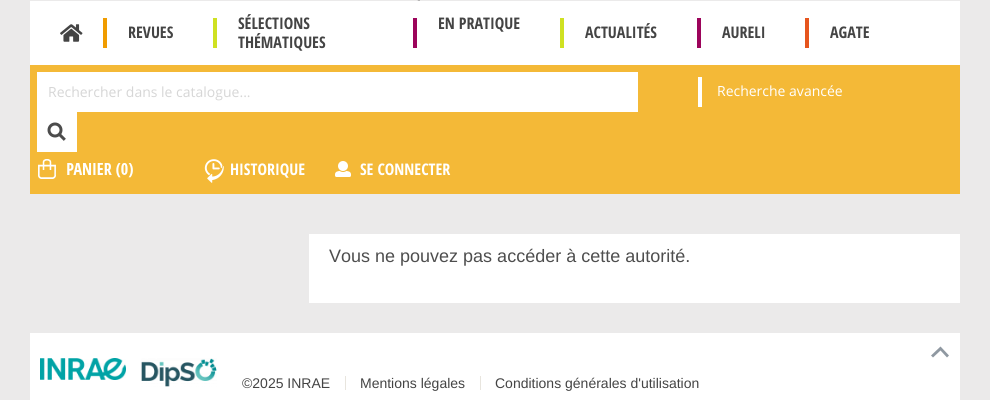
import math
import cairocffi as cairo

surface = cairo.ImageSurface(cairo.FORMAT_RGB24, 990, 400)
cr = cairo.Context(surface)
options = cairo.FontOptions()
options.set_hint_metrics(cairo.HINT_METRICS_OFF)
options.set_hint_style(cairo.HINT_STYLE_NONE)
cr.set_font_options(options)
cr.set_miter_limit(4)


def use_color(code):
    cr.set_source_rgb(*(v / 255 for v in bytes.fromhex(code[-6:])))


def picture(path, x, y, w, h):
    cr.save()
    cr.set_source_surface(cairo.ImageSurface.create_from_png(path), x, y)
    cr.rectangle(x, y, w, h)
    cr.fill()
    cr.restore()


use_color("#ebeaea")
cr.paint()
picture("img1.png", 417, 0, 3, 1)
use_color("#ffffff")
cr.rectangle(30, 1, 930, 64)
cr.fill()
picture("img2.png", 60, 24, 23, 18)
use_color("#f09c00")
cr.rectangle(103, 18, 4, 30)
cr.fill()
cr.select_font_face("Open Sans Condensed", cairo.FONT_SLANT_NORMAL, cairo.FONT_WEIGHT_BOLD)
cr.set_font_size(16)
use_color("#444444")
cr.move_to(128, 38)
cr.show_text("REVUES")
use_color("#cfe122")
cr.rectangle(213, 18, 4, 30)
cr.fill()
use_color("#444444")
cr.move_to(238, 29)
cr.show_text("SÉLECTIONS")
cr.move_to(238, 48)
cr.show_text("THÉMATIQUES")
use_color("#9c045b")
cr.rectangle(413, 18, 4, 30)
cr.fill()
use_color("#444444")
cr.move_to(438, 29)
cr.show_text("EN PRATIQUE")
use_color("#cfe122")
cr.rectangle(560, 18, 4, 30)
cr.fill()
use_color("#444444")
cr.move_to(585, 38)
cr.show_text("ACTUALITÉS")
use_color("#9c045b")
cr.rectangle(697, 18, 4, 30)
cr.fill()
use_color("#444444")
cr.move_to(722, 38)
cr.show_text("AURELI")
use_color("#e6551e")
cr.rectangle(805, 18, 4, 30)
cr.fill()
use_color("#444444")
cr.move_to(830, 38)
cr.show_text("AGATE")
use_color("#f4b937")
cr.rectangle(30, 65, 930, 129)
cr.fill()
use_color("#ffffff")
cr.rectangle(37, 72, 601, 40)
cr.fill()
cr.select_font_face("Open Sans")
cr.set_font_size(14)
use_color("#d6d6d6")
cr.move_to(48, 97)
cr.show_text("Rechercher dans le catalogue...")
use_color("#ffffff")
cr.rectangle(37, 112, 40, 40)
cr.fill()
picture("img3.png", 47, 122, 19, 19)
cr.rectangle(698, 77, 4, 30)
cr.fill()
cr.move_to(717, 96)
cr.show_text("Recherche avancée")
picture("img4.png", 38, 159, 95, 20)
picture("img5.png", 204, 159, 20, 24)
cr.select_font_face("Open Sans Condensed", cairo.FONT_SLANT_NORMAL, cairo.FONT_WEIGHT_BOLD)
cr.set_font_size(16)
cr.move_to(230, 175)
cr.show_text("HISTORIQUE")
picture("img6.png", 335, 161, 16, 16)
cr.move_to(360, 175)
cr.show_text("SE CONNECTER")
cr.rectangle(309, 234, 651, 69)
cr.fill()
cr.select_font_face("Liberation Sans")
cr.set_font_size(18)
use_color("#4e4e4e")
cr.move_to(329, 262)
cr.show_text("Vous ne pouvez pas accéder à cette autorité.")
use_color("#ffffff")
cr.rectangle(30, 333, 930, 67)
cr.fill()
use_color("#8f98a1")
cr.set_fill_rule(cairo.FILL_RULE_EVEN_ODD)
cr.new_path()
cr.move_to(940.5, 346.5)
cr.line_to(949, 355.5)
cr.line_to(947, 357.5)
cr.line_to(940.5, 350.5)
cr.line_to(933, 357.5)
cr.line_to(931, 355.5)
cr.close_path()
cr.fill()
picture("img7.png", 40, 358, 86, 22)
picture("img8.png", 141, 358, 76, 29)
cr.set_font_size(14)
use_color("#444444")
cr.move_to(242, 388)
cr.show_text("©2025 INRAE")
use_color("#e8e5de")
cr.rectangle(345, 376, 1, 14)
cr.fill()
use_color("#444444")
cr.move_to(360, 388)
cr.show_text("Mentions légales")
use_color("#e8e5de")
cr.rectangle(480, 376, 1, 14)
cr.fill()
use_color("#444444")
cr.move_to(495, 388)
cr.show_text("Conditions générales d'utilisation")
surface.write_to_png("result.png")
